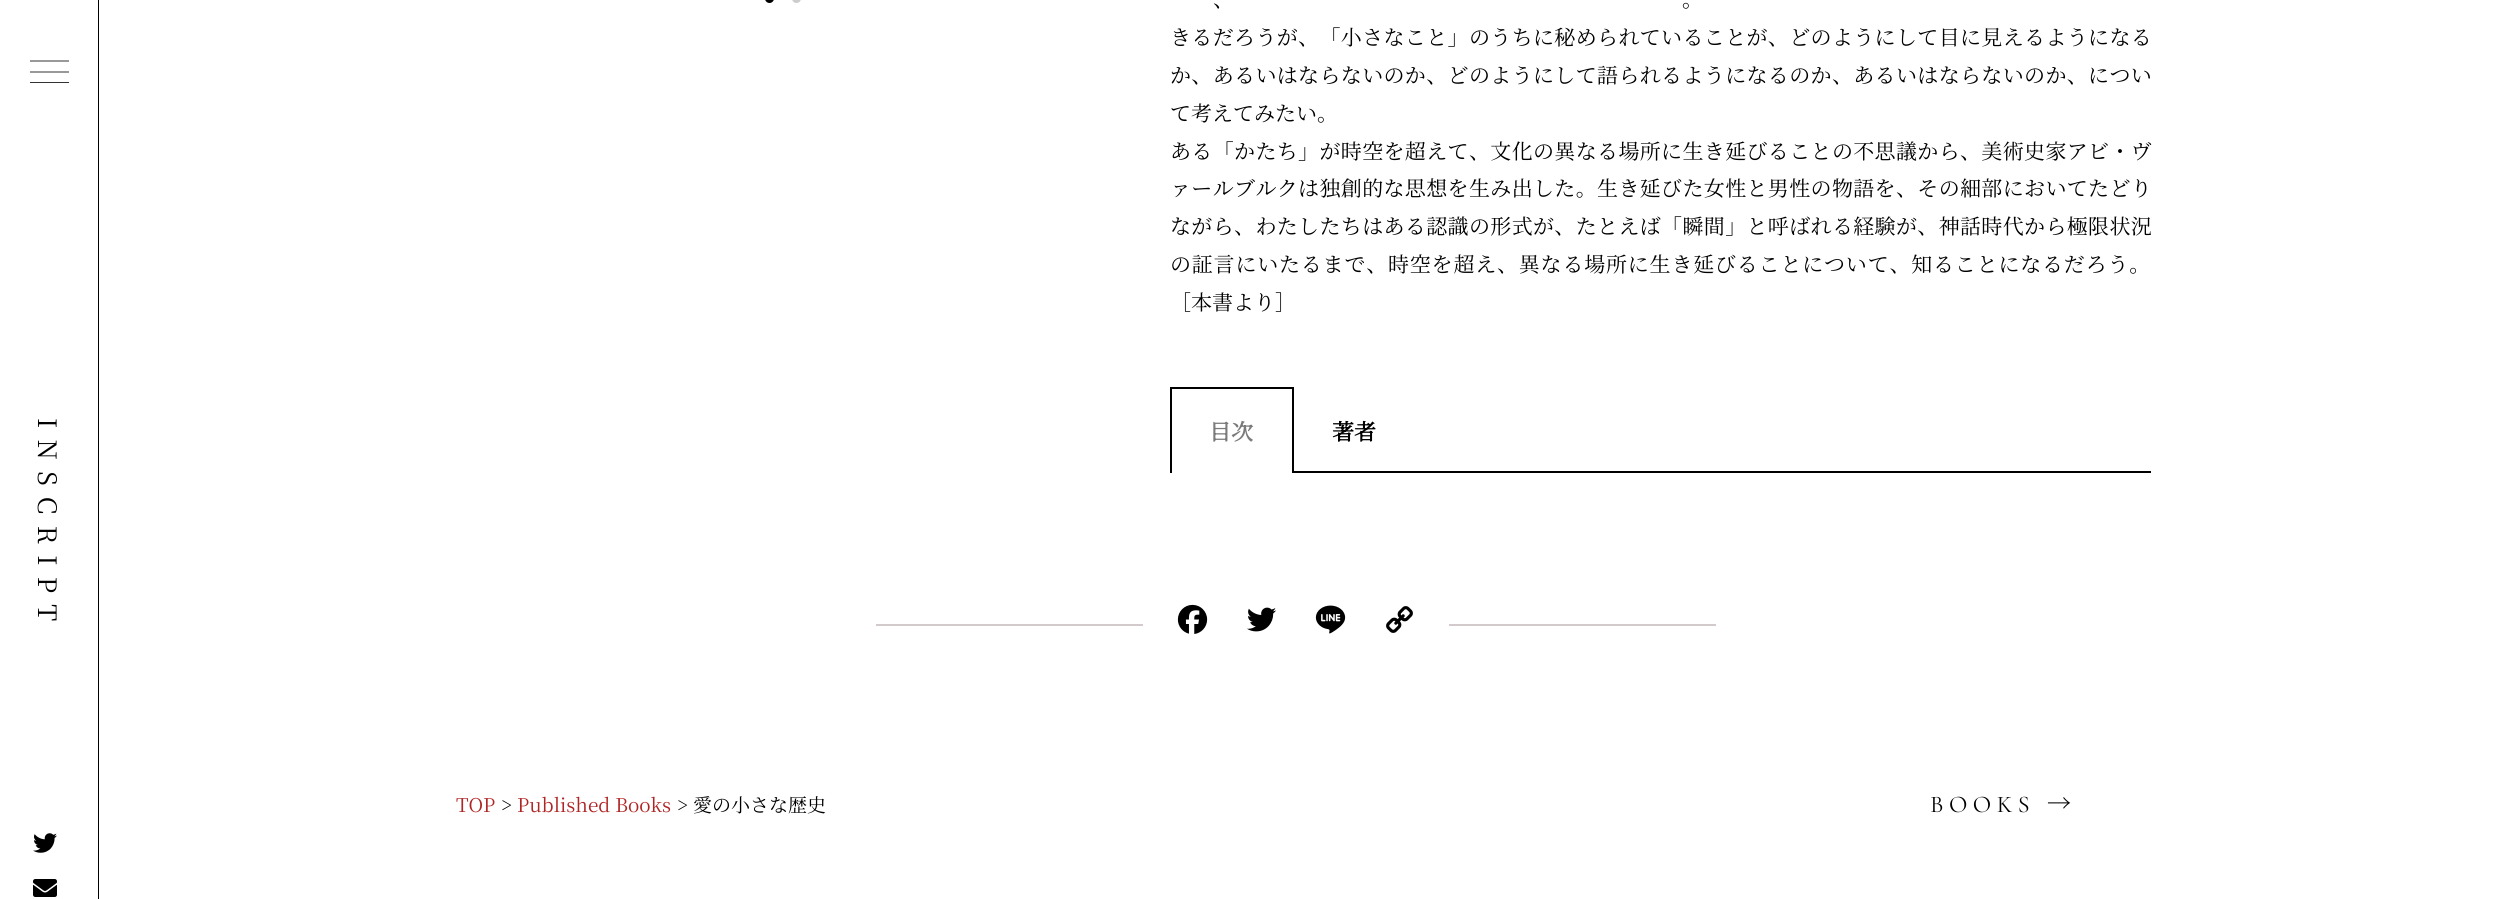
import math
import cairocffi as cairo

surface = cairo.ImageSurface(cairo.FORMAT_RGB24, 2493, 899)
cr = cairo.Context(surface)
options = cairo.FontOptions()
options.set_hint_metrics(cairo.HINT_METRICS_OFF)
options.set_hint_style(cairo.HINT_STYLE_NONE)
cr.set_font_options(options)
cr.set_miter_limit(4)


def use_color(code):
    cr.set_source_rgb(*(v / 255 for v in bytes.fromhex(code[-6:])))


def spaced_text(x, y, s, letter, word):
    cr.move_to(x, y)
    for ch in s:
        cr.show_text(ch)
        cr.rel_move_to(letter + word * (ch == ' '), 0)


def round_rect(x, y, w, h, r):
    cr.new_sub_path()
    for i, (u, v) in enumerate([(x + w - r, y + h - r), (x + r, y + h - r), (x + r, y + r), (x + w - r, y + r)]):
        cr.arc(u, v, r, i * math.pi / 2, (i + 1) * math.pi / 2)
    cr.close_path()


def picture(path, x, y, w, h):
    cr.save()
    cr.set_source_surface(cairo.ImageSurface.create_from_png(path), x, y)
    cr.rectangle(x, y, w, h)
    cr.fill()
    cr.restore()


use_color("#ffffff")
cr.paint()
use_color("#000000")
cr.rectangle(98, 0, 1, 899)
cr.fill()
cr.new_path()
cr.move_to(30, 72)
cr.line_to(69, 72)
cr.move_to(30, 61)
cr.line_to(69, 61)
cr.set_line_width(0.8)
cr.stroke()
use_color("#333333")
cr.rectangle(30, 82, 39, 1)
cr.fill()
cr.select_font_face("Noto Serif JP ExtraLight")
cr.set_font_size(25.5)
use_color("#000000")
cr.save()
cr.translate(38, 418)
cr.rotate(90 * math.pi / 180)
spaced_text(0, 0, "INSCRIPT", 11.25, 0)
cr.restore()
picture("img1.png", 33, 833, 24, 20)
picture("img2.png", 33, 879, 24, 18)
round_rect(765, -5, 9, 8, 4.5)
cr.fill()
use_color("#cccccc")
round_rect(792, -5, 9, 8, 4.5)
cr.fill()
cr.set_font_size(21)
use_color("#000000")
spaced_text(1213, 7, "、", 0.35, 0)
spaced_text(1682, 7, "。", 0.35, 0)
spaced_text(1170, 45, "きるだろうが、「小さなこと」のうちに秘められていることが、どのようにして目に見えるようになる", 0.35, 0)
spaced_text(1170, 83, "か、あるいはならないのか、どのようにして語られるようになるのか、あるいはならないのか、につい", 0.35, 0)
cr.move_to(1170, 121)
cr.show_text("て考えてみたい。")
spaced_text(1170, 159, "ある「かたち」が時空を超えて、文化の異なる場所に生き延びることの不思議から、美術史家アビ・ヴ", 0.35, 0)
spaced_text(1170, 196, "ァールブルクは独創的な思想を生み出した。生き延びた女性と男性の物語を、その細部においてたどり", 0.35, 0)
spaced_text(1170, 234, "ながら、わたしたちはある認識の形式が、たとえば「瞬間」と呼ばれる経験が、神話時代から極限状況", 0.35, 0)
spaced_text(1170, 272, "の証言にいたるまで、時空を超え、異なる場所に生き延びることについて、知ることになるだろう。", 0.8, 0)
cr.move_to(1170, 310)
cr.show_text("［本書より］")
cr.rectangle(1170, 387, 123, 2)
cr.fill()
cr.rectangle(1292, 387, 2, 86)
cr.fill()
cr.rectangle(1170, 387, 2, 86)
cr.fill()
cr.select_font_face("Noto Serif JP", cairo.FONT_SLANT_NORMAL, cairo.FONT_WEIGHT_BOLD)
cr.set_font_size(22)
use_color("#7a7a7a")
cr.move_to(1209, 440)
cr.show_text("目次")
use_color("#000000")
cr.rectangle(1292, 471, 859, 2)
cr.fill()
cr.move_to(1332, 440)
cr.show_text("著者")
use_color("#d3cbcb")
cr.rectangle(876, 624, 267, 2)
cr.fill()
picture("img3.png", 1177, 604, 31, 30)
picture("img4.png", 1247, 607, 29, 25)
picture("img5.png", 1315, 605, 31, 29)
picture("img6.png", 1386, 606, 27, 27)
cr.rectangle(1449, 624, 267, 2)
cr.fill()
cr.select_font_face("Noto Serif JP ExtraLight")
cr.set_font_size(19)
use_color("#af2424")
cr.move_to(456, 812)
cr.show_text("TOP")
use_color("#000000")
cr.move_to(501, 812)
cr.show_text(">")
use_color("#af2424")
cr.move_to(517, 812)
cr.show_text("Published Books")
use_color("#000000")
cr.move_to(677, 812)
cr.show_text("> 愛の小さな歴史")
cr.select_font_face("Cormorant Garamond")
cr.set_font_size(24)
spaced_text(1930, 812, "BOOKS", 5.5, 0)
cr.select_font_face("Noto Serif JP ExtraLight")
spaced_text(2047, 812, "→", 5.5, 0)
surface.write_to_png("result.png")
